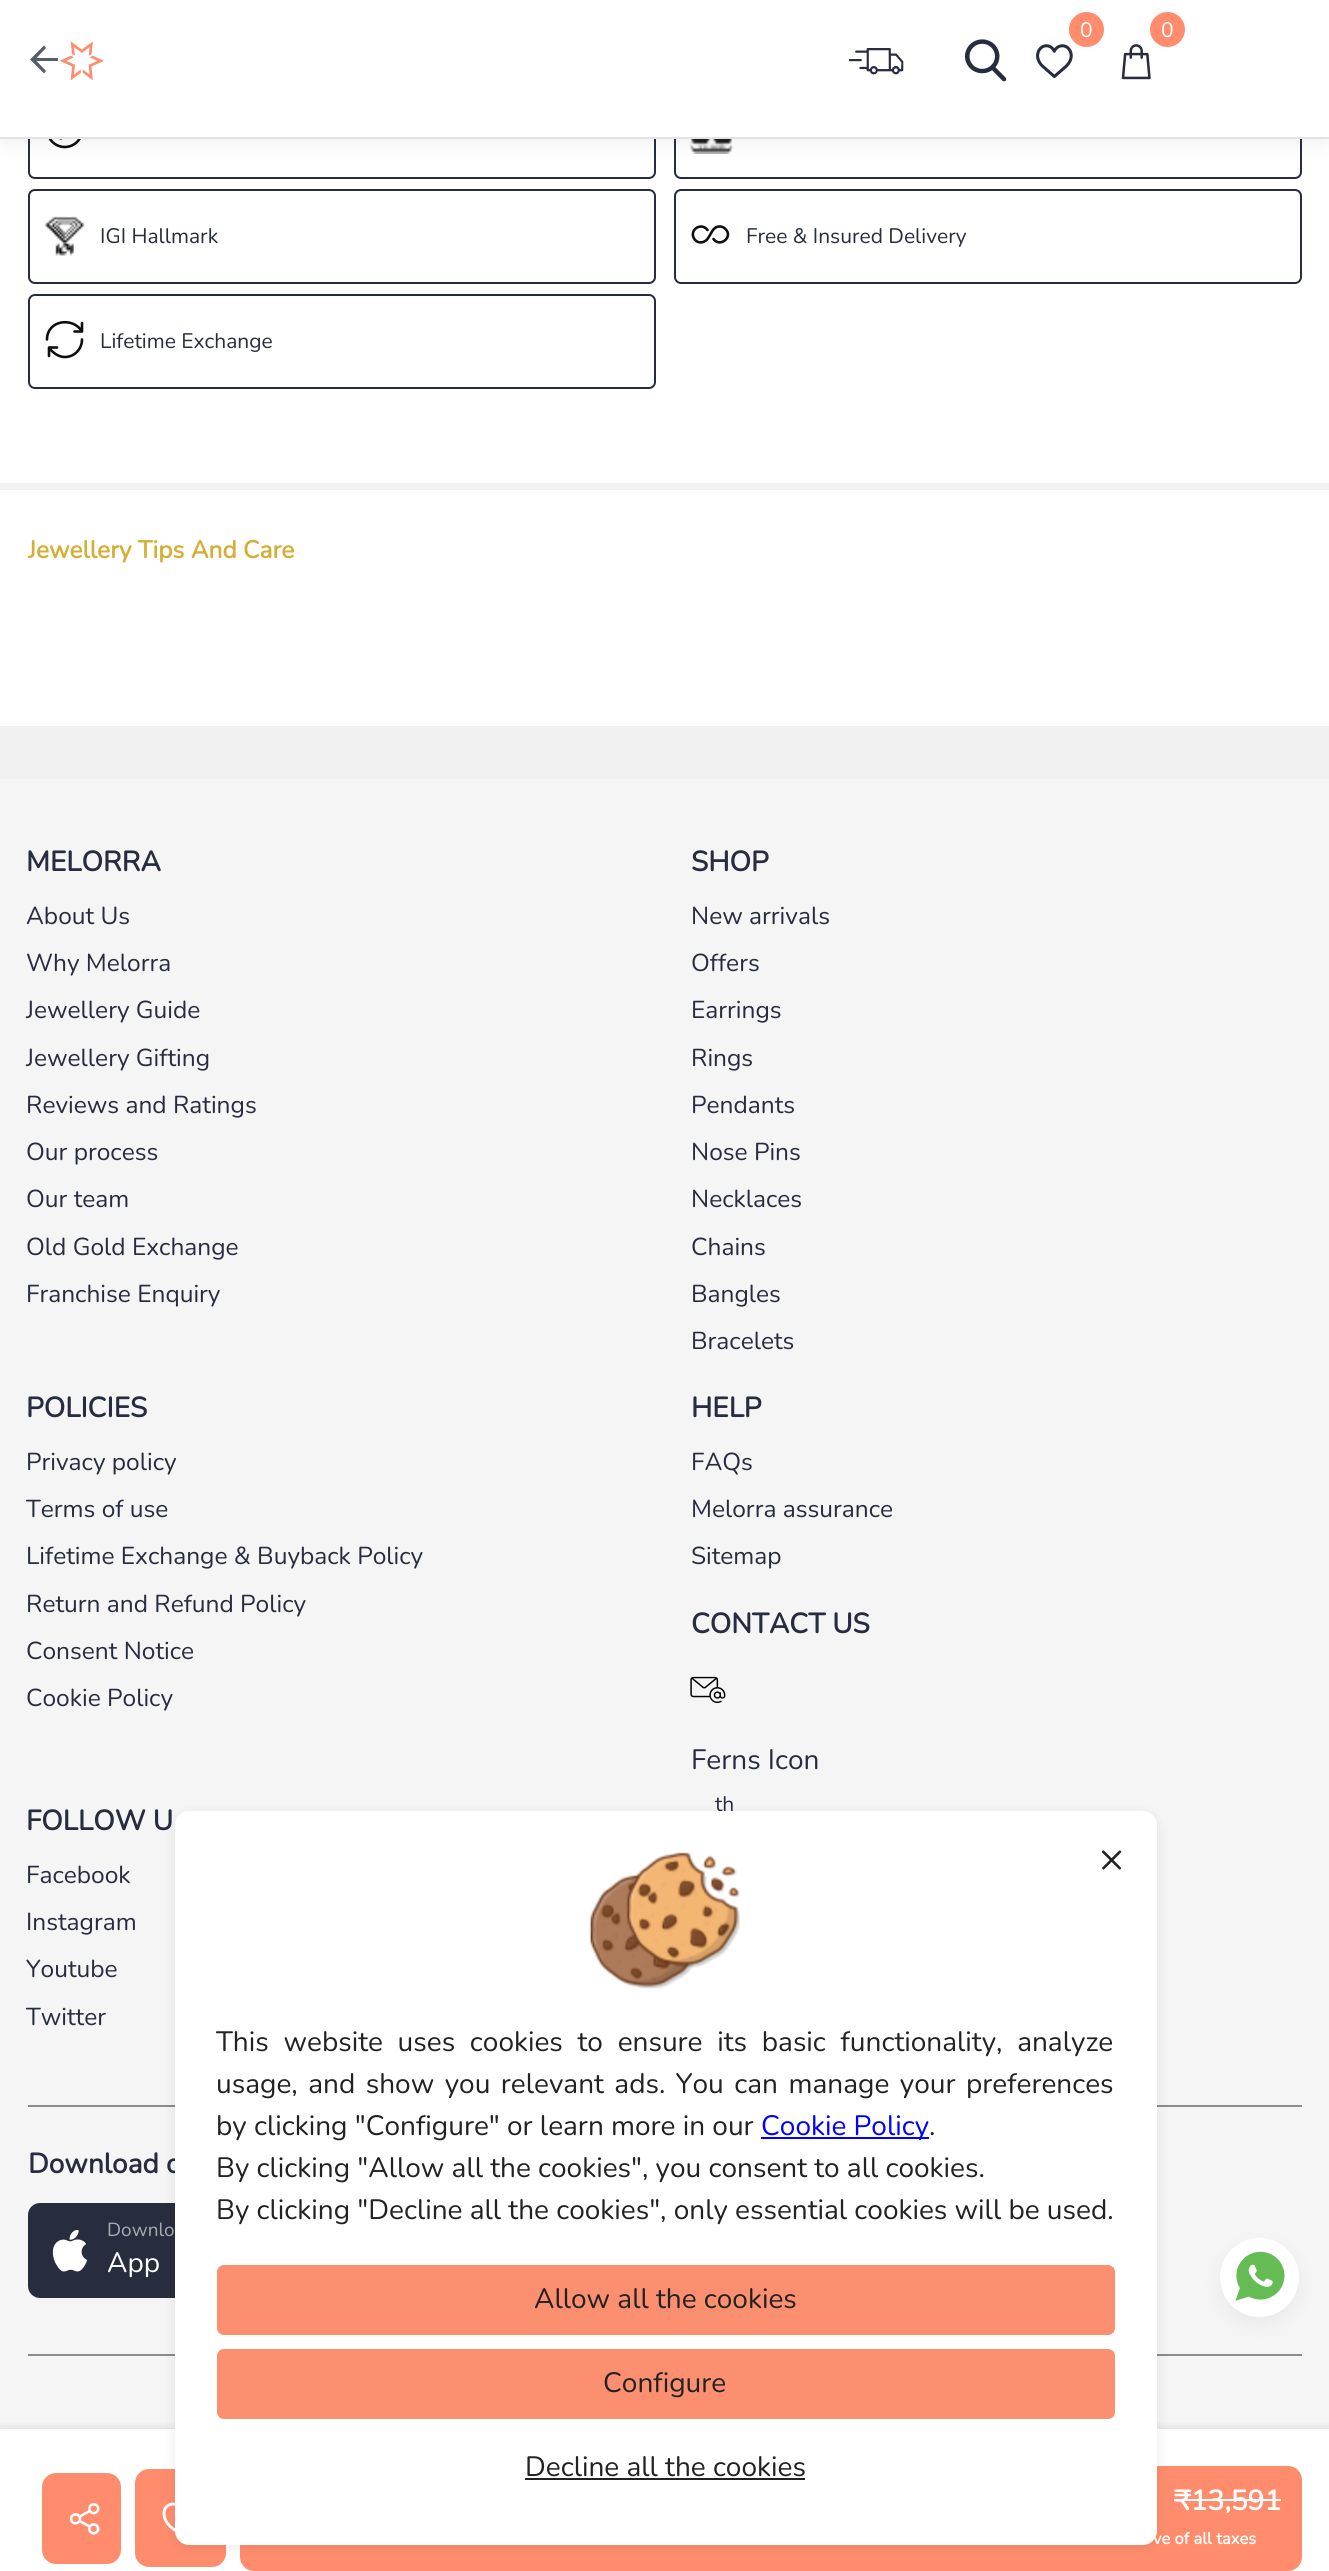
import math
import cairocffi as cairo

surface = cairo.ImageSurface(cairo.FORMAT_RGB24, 1329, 2571)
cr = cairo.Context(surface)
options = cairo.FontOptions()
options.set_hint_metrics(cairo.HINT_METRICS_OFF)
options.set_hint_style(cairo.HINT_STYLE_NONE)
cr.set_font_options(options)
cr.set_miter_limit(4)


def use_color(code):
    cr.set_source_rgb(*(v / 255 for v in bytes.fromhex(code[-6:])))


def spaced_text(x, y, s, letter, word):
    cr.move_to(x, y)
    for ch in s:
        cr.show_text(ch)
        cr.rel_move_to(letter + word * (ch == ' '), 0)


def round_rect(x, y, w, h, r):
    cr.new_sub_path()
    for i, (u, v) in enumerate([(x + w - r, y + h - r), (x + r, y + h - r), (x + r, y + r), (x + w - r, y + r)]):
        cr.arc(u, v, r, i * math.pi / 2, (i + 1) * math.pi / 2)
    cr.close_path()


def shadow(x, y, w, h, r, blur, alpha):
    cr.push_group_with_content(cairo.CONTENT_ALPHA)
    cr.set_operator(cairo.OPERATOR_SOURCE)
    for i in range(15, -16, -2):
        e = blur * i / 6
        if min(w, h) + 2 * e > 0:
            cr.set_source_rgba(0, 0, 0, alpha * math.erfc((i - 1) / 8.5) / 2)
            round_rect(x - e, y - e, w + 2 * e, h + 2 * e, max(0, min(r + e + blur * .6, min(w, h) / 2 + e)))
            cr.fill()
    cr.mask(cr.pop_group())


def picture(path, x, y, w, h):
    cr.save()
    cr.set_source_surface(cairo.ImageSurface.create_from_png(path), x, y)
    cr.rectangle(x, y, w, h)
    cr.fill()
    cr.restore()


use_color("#f1f1f1")
cr.paint()
use_color("#ffffff")
cr.rectangle(0, 139, 1329, 587)
cr.fill()
round_rect(29, 85, 626, 93, 6)
use_color("#282c3f")
cr.stroke()
picture("img6.png", 48, 139, 33, 10)
round_rect(675, 85, 626, 93, 6)
cr.stroke()
picture("img8.png", 689, 139, 45, 15)
use_color("#000000")
shadow(2, 9, 1326, 135, 0, 10.5, 0.06)
use_color("#ffffff")
cr.rectangle(0, 0, 1329, 137)
cr.fill()
picture("img1.png", 1036, 44, 37, 34)
use_color("#ff8d6d")
cr.arc(1086.5, 29.5, 17.5, 0, 2 * math.pi)
cr.fill()
cr.select_font_face("Nunito ExtraLight")
cr.set_font_size(21)
use_color("#ffffff")
cr.move_to(1080, 37)
cr.show_text("0")
picture("img2.png", 1121, 44, 30, 36)
use_color("#ff8d6d")
cr.arc(1167.5, 29.5, 17.5, 0, 2 * math.pi)
cr.fill()
use_color("#ffffff")
cr.move_to(1161, 37)
cr.show_text("0")
picture("img3.png", 848, 48, 56, 27)
picture("img4.png", 965, 39, 42, 43)
use_color("#575d67")
cr.new_path()
cr.move_to(58, 58)
cr.line_to(36.5, 58)
cr.line_to(46, 48)
cr.line_to(44, 45.5)
cr.line_to(30, 59.5)
cr.line_to(44, 73.5)
cr.line_to(46, 71)
cr.line_to(36.5, 61)
cr.line_to(58, 61)
cr.close_path()
cr.fill()
picture("img5.png", 59, 41, 45, 40)
use_color("#e3e3e3")
cr.rectangle(0, 137, 1329, 2)
cr.fill()
round_rect(29, 190, 626, 93, 6)
use_color("#282c3f")
cr.stroke()
picture("img7.png", 45, 216, 40, 40)
cr.move_to(100, 243)
cr.show_text("IGI Hallmark")
round_rect(29, 295, 626, 93, 6)
cr.stroke()
cr.new_path()
cr.move_to(82, 339.5)
cr.curve_to(82, 349, 74.5, 357, 65, 357)
cr.curve_to(55, 357, 49, 347.5, 49, 347.5)
cr.move_to(49, 347.5)
cr.line_to(57, 347.5)
cr.move_to(49, 347.5)
cr.line_to(49, 356)
cr.move_to(47, 339.5)
cr.curve_to(47, 320, 73, 316.5, 82, 331.5)
cr.move_to(82, 331.5)
cr.line_to(82, 323)
cr.move_to(82, 331.5)
cr.line_to(74.5, 331.5)
use_color("#0e0e10")
cr.set_line_width(2.6)
cr.set_line_cap(cairo.LINE_CAP_ROUND)
cr.set_line_join(cairo.LINE_JOIN_ROUND)
cr.stroke()
use_color("#282c3f")
cr.move_to(100, 348)
cr.show_text("Lifetime Exchange")
round_rect(675, 190, 626, 93, 6)
cr.set_line_width(2)
cr.set_line_cap(cairo.LINE_CAP_BUTT)
cr.set_line_join(cairo.LINE_JOIN_MITER)
cr.stroke()
cr.new_path()
cr.move_to(707.5, 230)
cr.curve_to(702.5, 223, 691.5, 227.5, 693, 236)
cr.curve_to(693.5, 238.5, 695.5, 241, 698, 242)
cr.curve_to(699.5, 242.5, 701.5, 242.5, 703, 242)
cr.curve_to(711, 240, 710.5, 226, 720, 226.5)
cr.curve_to(722, 226.5, 724, 227.5, 725.5, 229)
cr.curve_to(733.5, 237, 720, 248, 713.5, 239)
use_color("#0e0e10")
cr.set_line_width(2.6)
cr.set_line_cap(cairo.LINE_CAP_ROUND)
cr.set_line_join(cairo.LINE_JOIN_ROUND)
cr.stroke()
use_color("#282c3f")
cr.move_to(746, 243)
cr.show_text("Free & Insured Delivery")
use_color("#f1f1f1")
cr.rectangle(0, 483, 1329, 7)
cr.fill()
cr.select_font_face("Nunito", cairo.FONT_SLANT_NORMAL, cairo.FONT_WEIGHT_BOLD)
cr.set_font_size(24.5)
use_color("#d4af37")
cr.move_to(28, 558)
cr.show_text("Jewellery Tips And Care")
use_color("#f5f5f6")
cr.rectangle(0, 779, 1329, 1650)
cr.fill()
use_color("#000000")
shadow(0, 2426, 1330, 136, 0, 3.5, 0.08)
use_color("#ffffff")
cr.rectangle(0, 2429, 1329, 142)
cr.fill()
use_color("#ff8d6d")
round_rect(42, 2473, 79, 91, 14)
cr.fill()
picture("img9.png", 69, 2503, 31, 32)
round_rect(135, 2469, 91, 98, 14)
cr.fill()
cr.new_path()
cr.move_to(181, 2532)
cr.line_to(179, 2532)
cr.curve_to(174.5, 2530.5, 164, 2524, 164, 2513)
cr.curve_to(164, 2508, 168, 2504, 173, 2504)
cr.curve_to(176, 2504, 178.5, 2505.5, 180, 2507.5)
cr.curve_to(187, 2498, 203, 2508.5, 192.5, 2523.5)
cr.curve_to(189.5, 2527.5, 185.5, 2530.5, 181, 2532)
cr.close_path()
use_color("#ffffff")
cr.set_line_width(2.9)
cr.stroke()
use_color("#ff8d6d")
round_rect(240, 2466, 1062, 105, 14)
cr.fill()
cr.set_font_size(28)
use_color("#ffffff")
cr.move_to(1174, 2510)
cr.show_text("₹13,591")
cr.rectangle(1174, 2499, 107, 2)
cr.fill()
cr.set_font_size(16.5)
cr.move_to(1153, 2544)
cr.show_text("ve of all taxes")
cr.set_font_size(28)
use_color("#282c3f")
cr.move_to(26, 871)
cr.show_text("MELORRA")
cr.select_font_face("Nunito ExtraLight")
cr.set_font_size(24.5)
cr.move_to(26, 924)
cr.show_text("About Us")
cr.move_to(26, 971)
cr.show_text("Why Melorra")
cr.move_to(26, 1018)
cr.show_text("Jewellery Guide")
cr.move_to(26, 1066)
cr.show_text("Jewellery Gifting")
cr.move_to(26, 1113)
cr.show_text("Reviews and Ratings")
cr.move_to(26, 1160)
cr.show_text("Our process")
cr.move_to(26, 1207)
cr.show_text("Our team")
cr.move_to(26, 1255)
cr.show_text("Old Gold Exchange")
cr.move_to(26, 1302)
cr.show_text("Franchise Enquiry")
cr.select_font_face("Nunito", cairo.FONT_SLANT_NORMAL, cairo.FONT_WEIGHT_BOLD)
cr.set_font_size(28)
cr.move_to(691, 871)
cr.show_text("SHOP")
cr.select_font_face("Nunito ExtraLight")
cr.set_font_size(24.5)
cr.move_to(691, 924)
cr.show_text("New arrivals")
cr.move_to(691, 971)
cr.show_text("Offers")
cr.move_to(691, 1018)
cr.show_text("Earrings")
cr.move_to(691, 1066)
cr.show_text("Rings")
cr.move_to(691, 1113)
cr.show_text("Pendants")
cr.move_to(691, 1160)
cr.show_text("Nose Pins")
cr.move_to(691, 1207)
cr.show_text("Necklaces")
cr.move_to(691, 1255)
cr.show_text("Chains")
cr.move_to(691, 1302)
cr.show_text("Bangles")
cr.move_to(691, 1349)
cr.show_text("Bracelets")
cr.select_font_face("Nunito", cairo.FONT_SLANT_NORMAL, cairo.FONT_WEIGHT_BOLD)
cr.set_font_size(28)
cr.move_to(26, 1417)
cr.show_text("POLICIES")
cr.select_font_face("Nunito ExtraLight")
cr.set_font_size(24.5)
cr.move_to(26, 1470)
cr.show_text("Privacy policy")
cr.move_to(26, 1517)
cr.show_text("Terms of use")
cr.move_to(26, 1564)
cr.show_text("Lifetime Exchange & Buyback Policy")
cr.move_to(26, 1612)
cr.show_text("Return and Refund Policy")
cr.move_to(26, 1659)
cr.show_text("Consent Notice")
cr.move_to(26, 1706)
cr.show_text("Cookie Policy")
cr.select_font_face("Nunito", cairo.FONT_SLANT_NORMAL, cairo.FONT_WEIGHT_BOLD)
cr.set_font_size(28)
cr.move_to(26, 1830)
cr.show_text("FOLLOW U")
cr.select_font_face("Nunito ExtraLight")
cr.set_font_size(24.5)
cr.move_to(26, 1883)
cr.show_text("Facebook")
cr.move_to(26, 1930)
cr.show_text("Instagram")
cr.move_to(26, 1977)
cr.show_text("Youtube")
cr.move_to(26, 2025)
cr.show_text("Twitter")
cr.select_font_face("Nunito", cairo.FONT_SLANT_NORMAL, cairo.FONT_WEIGHT_BOLD)
cr.set_font_size(28)
cr.move_to(691, 1417)
cr.show_text("HELP")
cr.select_font_face("Nunito ExtraLight")
cr.set_font_size(24.5)
cr.move_to(691, 1470)
cr.show_text("FAQs")
cr.move_to(691, 1517)
cr.show_text("Melorra assurance")
cr.move_to(691, 1564)
cr.show_text("Sitemap")
cr.select_font_face("Nunito", cairo.FONT_SLANT_NORMAL, cairo.FONT_WEIGHT_BOLD)
cr.set_font_size(28)
cr.move_to(691, 1633)
cr.show_text("CONTACT US")
picture("img10.png", 690, 1676, 36, 28)
cr.select_font_face("Nunito ExtraLight")
cr.move_to(691, 1769)
cr.show_text("Ferns Icon")
cr.set_font_size(21)
cr.move_to(715, 1811)
cr.show_text("th")
use_color("#8c8b8b")
cr.rectangle(28, 2105, 1274, 2)
cr.fill()
cr.select_font_face("Nunito", cairo.FONT_SLANT_NORMAL, cairo.FONT_WEIGHT_BOLD)
cr.set_font_size(28)
use_color("#282c3f")
cr.move_to(28, 2173)
cr.show_text("Download o")
round_rect(28, 2203, 252, 95, 12)
cr.fill()
picture("img11.png", 52, 2230, 36, 42)
cr.select_font_face("Nunito ExtraLight")
cr.set_font_size(19)
use_color("#a9abb2")
cr.move_to(107, 2236)
cr.show_text("Downlo")
cr.set_font_size(28)
use_color("#ffffff")
cr.move_to(107, 2272)
cr.show_text("App")
use_color("#8c8b8b")
cr.rectangle(28, 2354, 1274, 2)
cr.fill()
use_color("#000000")
shadow(175, 1815, 982, 733, 14, 7, 0.08)
use_color("#ffffff")
round_rect(175, 1811, 982, 734, 14)
cr.fill()
picture("img12.png", 589, 1852, 151, 137)
cr.set_font_size(42)
use_color("#222222")
cr.move_to(1099, 1872)
cr.show_text("×")
cr.set_font_size(28)
spaced_text(216, 2051, "This website uses cookies to ensure its basic functionality, analyze", 0, 7.5)
spaced_text(216, 2093, "usage, and show you relevant ads. You can manage your preferences", 0, 3.25)
cr.move_to(216, 2135)
cr.show_text("by clicking \"Configure\" or learn more in our")
use_color("#0000ff")
cr.rectangle(761, 2137, 168, 2)
cr.fill()
cr.move_to(761, 2135)
cr.show_text("Cookie Policy")
use_color("#222222")
cr.move_to(929, 2135)
cr.show_text(".")
cr.move_to(216, 2177)
cr.show_text("By clicking \"Allow all the cookies\", you consent to all cookies.")
cr.move_to(216, 2219)
cr.show_text("By clicking \"Decline all the cookies\", only essential cookies will be used.")
use_color("#fc8f6f")
round_rect(217, 2265, 898, 70, 7)
cr.fill()
use_color("#222222")
cr.move_to(534, 2308)
cr.show_text("Allow all the cookies")
use_color("#fc8f6f")
round_rect(217, 2349, 898, 70, 7)
cr.fill()
use_color("#222222")
cr.move_to(603, 2392)
cr.show_text("Configure")
cr.move_to(525, 2476)
cr.show_text("Decline all the cookies")
cr.rectangle(525, 2478, 280, 2)
cr.fill()
use_color("#000000")
shadow(1222, 2247, 75, 75, 37.5, 10.5, 0.06)
use_color("#ffffff")
cr.arc(1259.5, 2277.5, 39.5, 0, 2 * math.pi)
cr.fill()
picture("img13.png", 1235, 2251, 50, 50)
surface.write_to_png("result.png")
